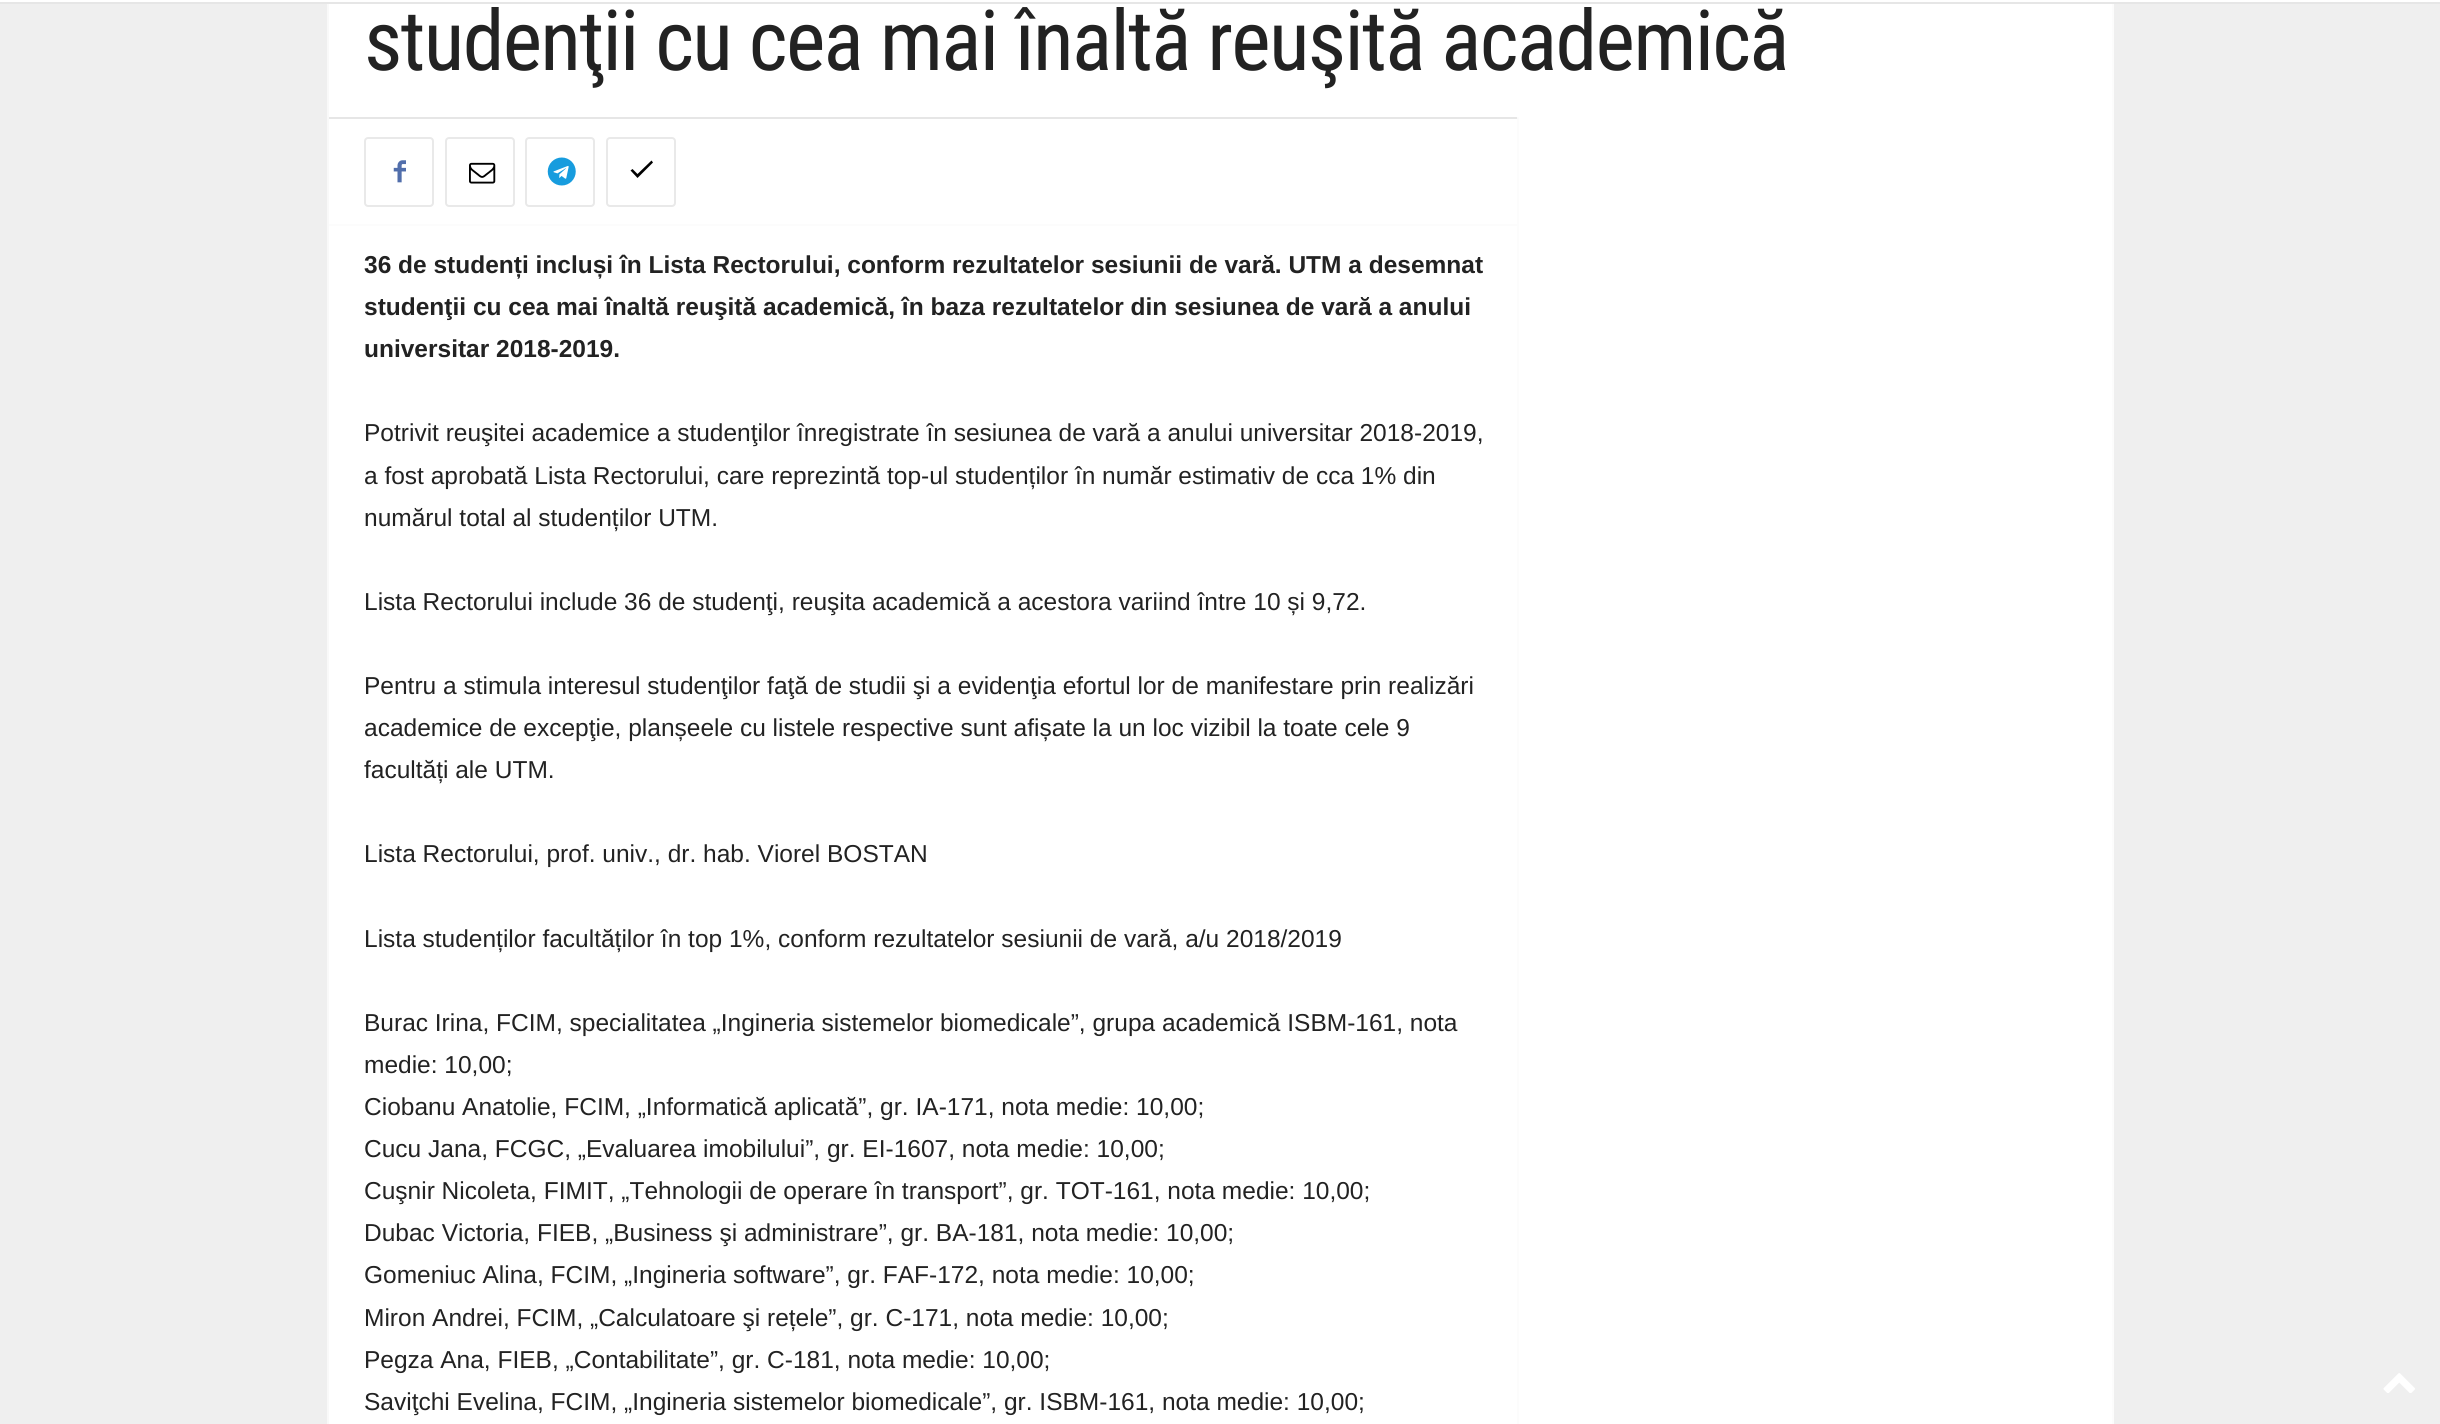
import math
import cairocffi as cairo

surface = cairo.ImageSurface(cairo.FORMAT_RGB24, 2440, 1424)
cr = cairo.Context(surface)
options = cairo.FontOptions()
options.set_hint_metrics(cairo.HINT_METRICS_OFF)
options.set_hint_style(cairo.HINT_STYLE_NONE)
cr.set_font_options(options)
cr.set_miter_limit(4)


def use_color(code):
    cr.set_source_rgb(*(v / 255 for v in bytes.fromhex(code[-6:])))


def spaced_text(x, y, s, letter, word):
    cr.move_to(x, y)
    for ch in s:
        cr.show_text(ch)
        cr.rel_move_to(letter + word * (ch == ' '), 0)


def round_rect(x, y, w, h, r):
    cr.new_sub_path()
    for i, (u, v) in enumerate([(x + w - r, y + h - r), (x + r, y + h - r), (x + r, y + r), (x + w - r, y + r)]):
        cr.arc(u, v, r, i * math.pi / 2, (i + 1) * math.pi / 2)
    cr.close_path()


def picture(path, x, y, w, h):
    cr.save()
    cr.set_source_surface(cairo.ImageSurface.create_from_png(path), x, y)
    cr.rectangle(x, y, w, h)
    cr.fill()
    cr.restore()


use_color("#efefef")
cr.paint()
use_color("#f9f9f9")
cr.rectangle(327, 0, 2, 1424)
cr.fill()
use_color("#fcfcfc")
cr.rectangle(2112, 0, 2, 1424)
cr.fill()
use_color("#ffffff")
cr.rectangle(0, 0, 2440, 2)
cr.fill()
use_color("#e6e6e6")
cr.rectangle(0, 2, 2440, 2)
cr.fill()
use_color("#ffffff")
cr.rectangle(329, 4, 1783, 1420)
cr.fill()
cr.select_font_face("Roboto Condensed")
cr.set_font_size(84)
use_color("#222222")
spaced_text(364, 70, "studenţii cu cea mai înaltă reuşită academică", -1.7, 0)
use_color("#fcfcfc")
cr.rectangle(1517, 117, 2, 1307)
cr.fill()
use_color("#f9f9f9")
cr.new_path()
cr.move_to(1517, 119)
cr.line_to(1517, 117)
cr.line_to(1519, 119)
cr.close_path()
cr.fill()
use_color("#e6e6e6")
cr.rectangle(329, 117, 1188, 2)
cr.fill()
round_rect(365, 138, 68, 68, 3)
use_color("#e9e9e9")
cr.stroke()
picture("img1.png", 393, 160, 13, 23)
round_rect(446, 138, 68, 68, 3)
cr.stroke()
picture("img2.png", 469, 162, 27, 22)
round_rect(526, 138, 68, 68, 3)
cr.stroke()
picture("img3.png", 547, 157, 29, 29)
round_rect(607, 138, 68, 68, 3)
cr.stroke()
use_color("#000000")
cr.new_path()
cr.move_to(637.5, 174)
cr.line_to(632.5, 169)
cr.line_to(630.5, 170.5)
cr.line_to(637.5, 178)
cr.line_to(653, 162.5)
cr.line_to(651.5, 160.5)
cr.close_path()
cr.fill()
use_color("#fcfcfc")
cr.rectangle(329, 224, 1188, 2)
cr.fill()
cr.select_font_face("Liberation Sans", cairo.FONT_SLANT_NORMAL, cairo.FONT_WEIGHT_BOLD)
cr.set_font_size(24.5)
use_color("#222222")
cr.move_to(364, 273)
cr.show_text("36 de studenți incluși în Lista Rectorului, conform rezultatelor sesiunii de vară. UTM a desemnat")
cr.move_to(364, 315)
cr.show_text("studenţii cu cea mai înaltă reuşită academică, în baza rezultatelor din sesiunea de vară a anului")
cr.move_to(364, 357)
cr.show_text("universitar 2018-2019.")
cr.select_font_face("Liberation Sans")
cr.move_to(364, 441)
cr.show_text("Potrivit reuşitei academice a studenţilor înregistrate în sesiunea de vară a anului universitar 2018-2019,")
cr.move_to(364, 484)
cr.show_text("a fost aprobată Lista Rectorului, care reprezintă top-ul studenților în număr estimativ de cca 1% din")
cr.move_to(364, 526)
cr.show_text("numărul total al studenților UTM.")
cr.move_to(364, 610)
cr.show_text("Lista Rectorului include 36 de studenţi, reuşita academică a acestora variind între 10 și 9,72.")
cr.move_to(364, 694)
cr.show_text("Pentru a stimula interesul studenţilor faţă de studii şi a evidenţia efortul lor de manifestare prin realizări")
cr.move_to(364, 736)
cr.show_text("academice de excepţie, planșeele cu listele respective sunt afișate la un loc vizibil la toate cele 9")
cr.move_to(364, 778)
cr.show_text("facultăți ale UTM.")
cr.move_to(364, 862)
cr.show_text("Lista Rectorului, prof. univ., dr. hab. Viorel BOSTAN")
cr.move_to(364, 947)
cr.show_text("Lista studenților facultăților în top 1%, conform rezultatelor sesiunii de vară, a/u 2018/2019")
cr.move_to(364, 1031)
cr.show_text("Burac Irina, FCIM, specialitatea „Ingineria sistemelor biomedicale”, grupa academică ISBM-161, nota")
cr.move_to(364, 1073)
cr.show_text("medie: 10,00;")
cr.move_to(364, 1115)
cr.show_text("Ciobanu Anatolie, FCIM, „Informatică aplicată”, gr. IA-171, nota medie: 10,00;")
cr.move_to(364, 1157)
cr.show_text("Cucu Jana, FCGC, „Evaluarea imobilului”, gr. EI-1607, nota medie: 10,00;")
cr.move_to(364, 1199)
cr.show_text("Cuşnir Nicoleta, FIMIT, „Tehnologii de operare în transport”, gr. TOT-161, nota medie: 10,00;")
cr.move_to(364, 1241)
cr.show_text("Dubac Victoria, FIEB, „Business şi administrare”, gr. BA-181, nota medie: 10,00;")
cr.move_to(364, 1283)
cr.show_text("Gomeniuc Alina, FCIM, „Ingineria software”, gr. FAF-172, nota medie: 10,00;")
cr.move_to(364, 1326)
cr.show_text("Miron Andrei, FCIM, „Calculatoare şi rețele”, gr. C-171, nota medie: 10,00;")
cr.move_to(364, 1368)
cr.show_text("Pegza Ana, FIEB, „Contabilitate”, gr. C-181, nota medie: 10,00;")
cr.move_to(364, 1410)
cr.show_text("Saviţchi Evelina, FCIM, „Ingineria sistemelor biomedicale”, gr. ISBM-161, nota medie: 10,00;")
picture("img4.png", 2383, 1373, 32, 20)
surface.write_to_png("result.png")
